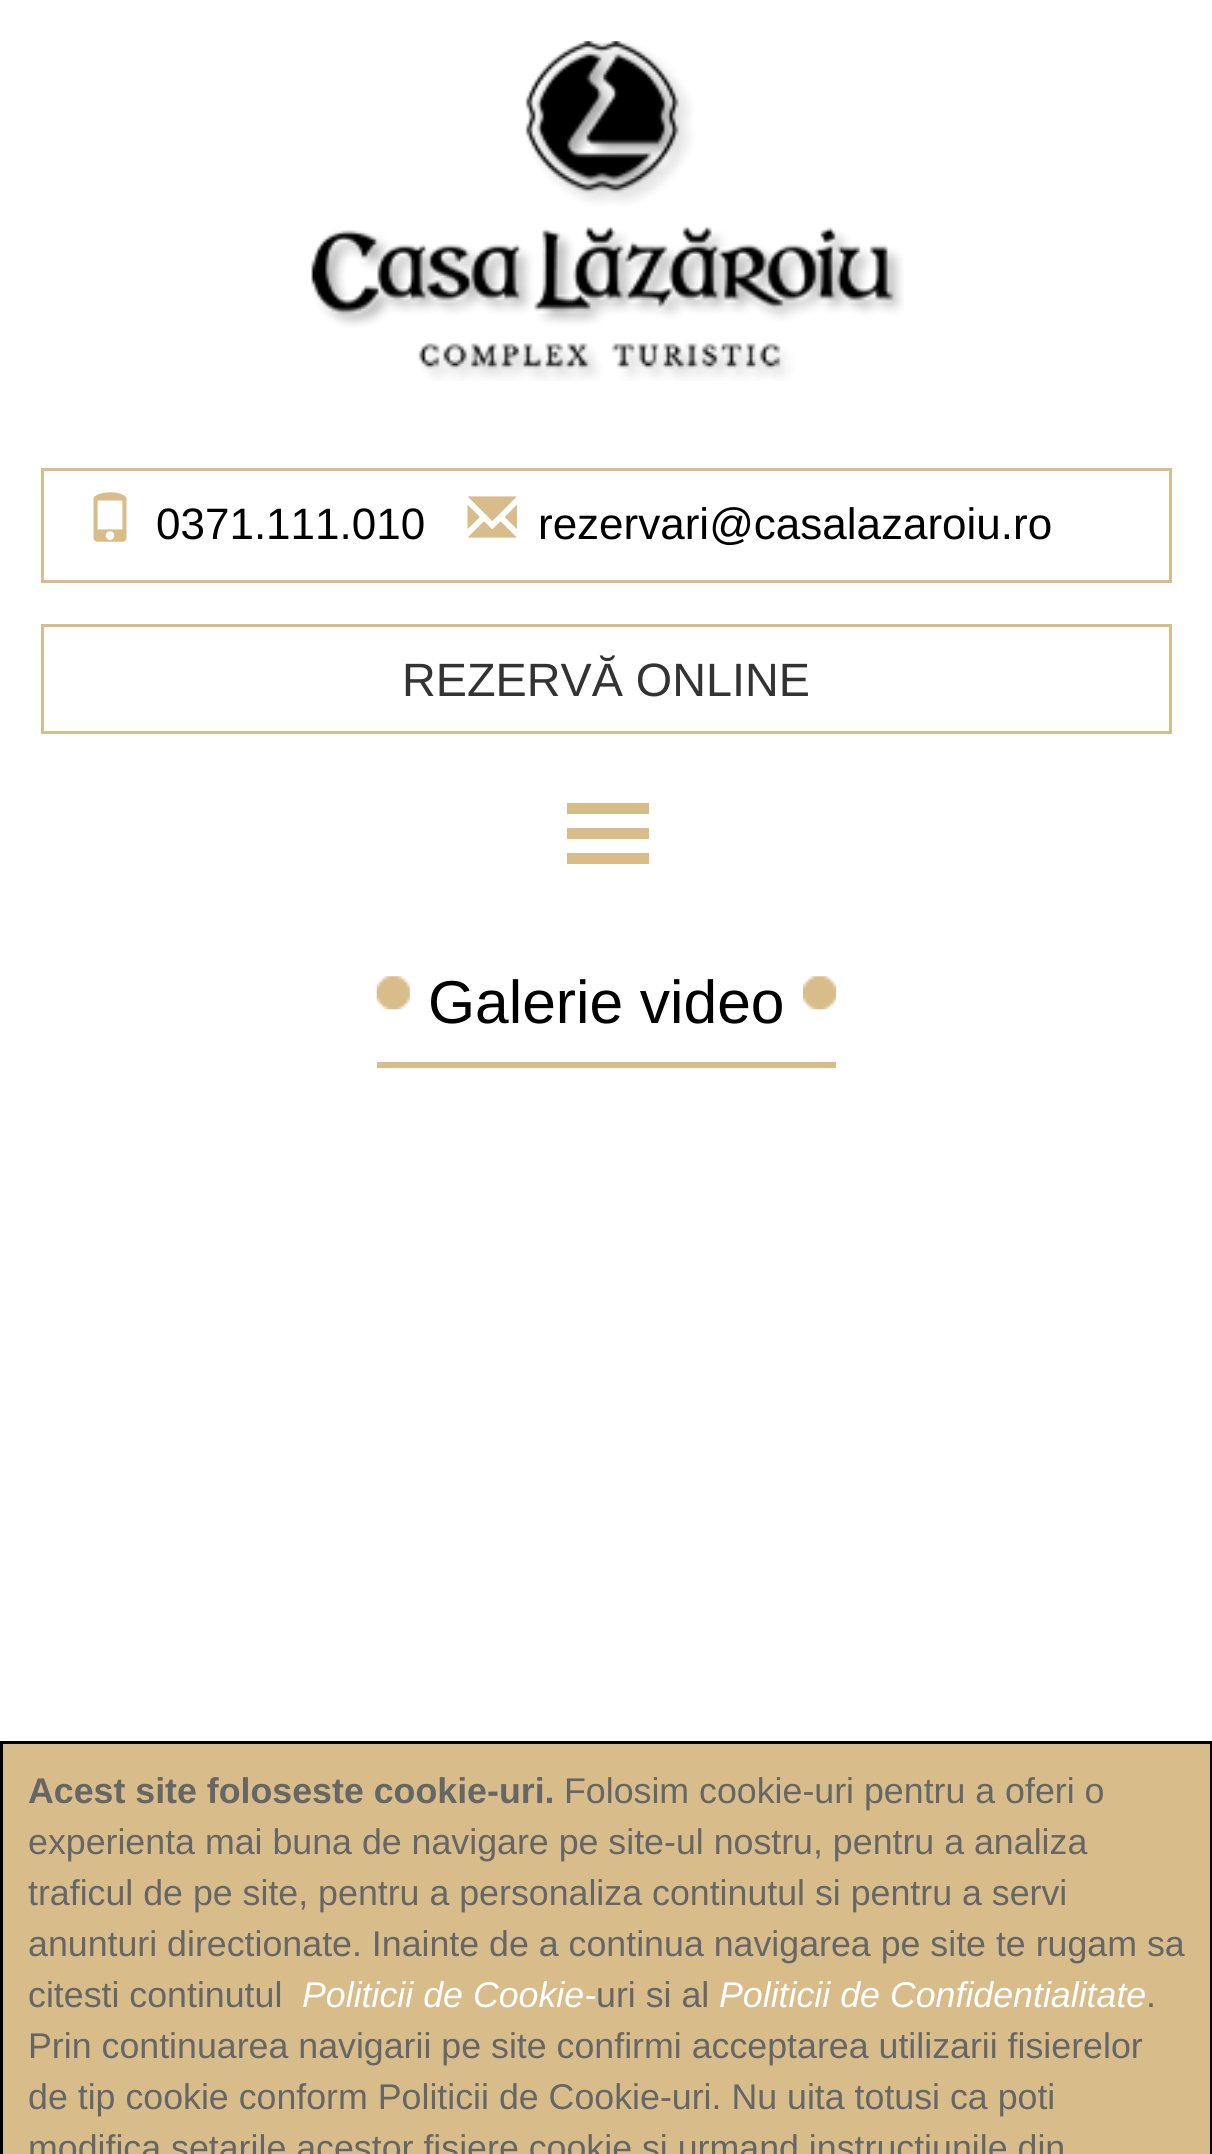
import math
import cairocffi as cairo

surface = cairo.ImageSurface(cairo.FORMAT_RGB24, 1212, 2154)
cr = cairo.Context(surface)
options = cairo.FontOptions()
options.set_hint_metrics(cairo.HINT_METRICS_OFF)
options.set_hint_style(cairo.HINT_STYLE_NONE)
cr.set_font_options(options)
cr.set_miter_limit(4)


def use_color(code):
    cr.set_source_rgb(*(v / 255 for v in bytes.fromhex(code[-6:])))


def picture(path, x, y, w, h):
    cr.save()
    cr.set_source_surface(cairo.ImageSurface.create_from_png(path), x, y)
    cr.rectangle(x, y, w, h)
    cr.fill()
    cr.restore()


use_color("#ffffff")
cr.paint()
picture("img1.png", 311, 41, 593, 340)
cr.rectangle(42.5, 469.5, 1128, 112)
use_color("#d8bd8b")
cr.set_line_width(3)
cr.stroke()
picture("img2.png", 93, 492, 34, 50)
cr.select_font_face("Liberation Sans")
cr.set_font_size(44)
use_color("#000000")
cr.move_to(156, 539)
cr.show_text("0371.111.010")
picture("img3.png", 467, 496, 50, 42)
cr.move_to(538, 539)
cr.show_text("rezervari@casalazaroiu.ro")
cr.rectangle(42.5, 625.5, 1128, 107)
use_color("#d8bd8b")
cr.stroke()
cr.set_font_size(46.75)
use_color("#333333")
cr.move_to(402, 696)
cr.show_text("REZERVĂ ONLINE")
use_color("#d8bd8b")
cr.rectangle(567, 803, 82, 11)
cr.fill()
cr.rectangle(567, 828, 82, 11)
cr.fill()
cr.rectangle(567, 853, 82, 11)
cr.fill()
cr.rectangle(377, 1062, 459, 6)
cr.fill()
picture("img4.png", 376, 976, 34, 34)
cr.set_font_size(60.5)
use_color("#000000")
cr.move_to(428, 1023)
cr.show_text("Galerie video")
picture("img5.png", 803, 976, 33, 34)
use_color("#d8bd8b")
cr.rectangle(1.5, 1742.5, 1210, 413)
cr.fill_preserve()
use_color("#000000")
cr.stroke()
cr.select_font_face("Liberation Sans", cairo.FONT_SLANT_NORMAL, cairo.FONT_WEIGHT_BOLD)
cr.set_font_size(35.75)
use_color("#666666")
cr.move_to(28, 1803)
cr.show_text("Acest site foloseste cookie-uri.")
cr.select_font_face("Liberation Sans")
cr.move_to(564, 1803)
cr.show_text("Folosim cookie-uri pentru a oferi o")
cr.move_to(28, 1854)
cr.show_text("experienta mai buna de navigare pe site-ul nostru, pentru a analiza")
cr.move_to(28, 1905)
cr.show_text("traficul de pe site, pentru a personaliza continutul si pentru a servi")
cr.move_to(28, 1956)
cr.show_text("anunturi directionate. Inainte de a continua navigarea pe site te rugam sa")
cr.move_to(28, 2007)
cr.show_text("citesti continutul")
cr.select_font_face("Liberation Sans", cairo.FONT_SLANT_ITALIC)
use_color("#ffffff")
cr.move_to(302, 2007)
cr.show_text("Politicii de Cookie-")
cr.select_font_face("Liberation Sans")
use_color("#666666")
cr.move_to(596, 2007)
cr.show_text("uri si al")
cr.select_font_face("Liberation Sans", cairo.FONT_SLANT_ITALIC)
use_color("#ffffff")
cr.move_to(719, 2007)
cr.show_text("Politicii de Confidentialitate")
cr.select_font_face("Liberation Sans")
use_color("#666666")
cr.move_to(1146, 2007)
cr.show_text(".")
cr.move_to(28, 2058)
cr.show_text("Prin continuarea navigarii pe site confirmi acceptarea utilizarii fisierelor")
cr.move_to(28, 2109)
cr.show_text("de tip cookie conform Politicii de Cookie-uri. Nu uita totusi ca poti")
cr.move_to(28, 2160)
cr.show_text("modifica setarile acestor fisiere cookie si urmand instructiunile din")
surface.write_to_png("result.png")
